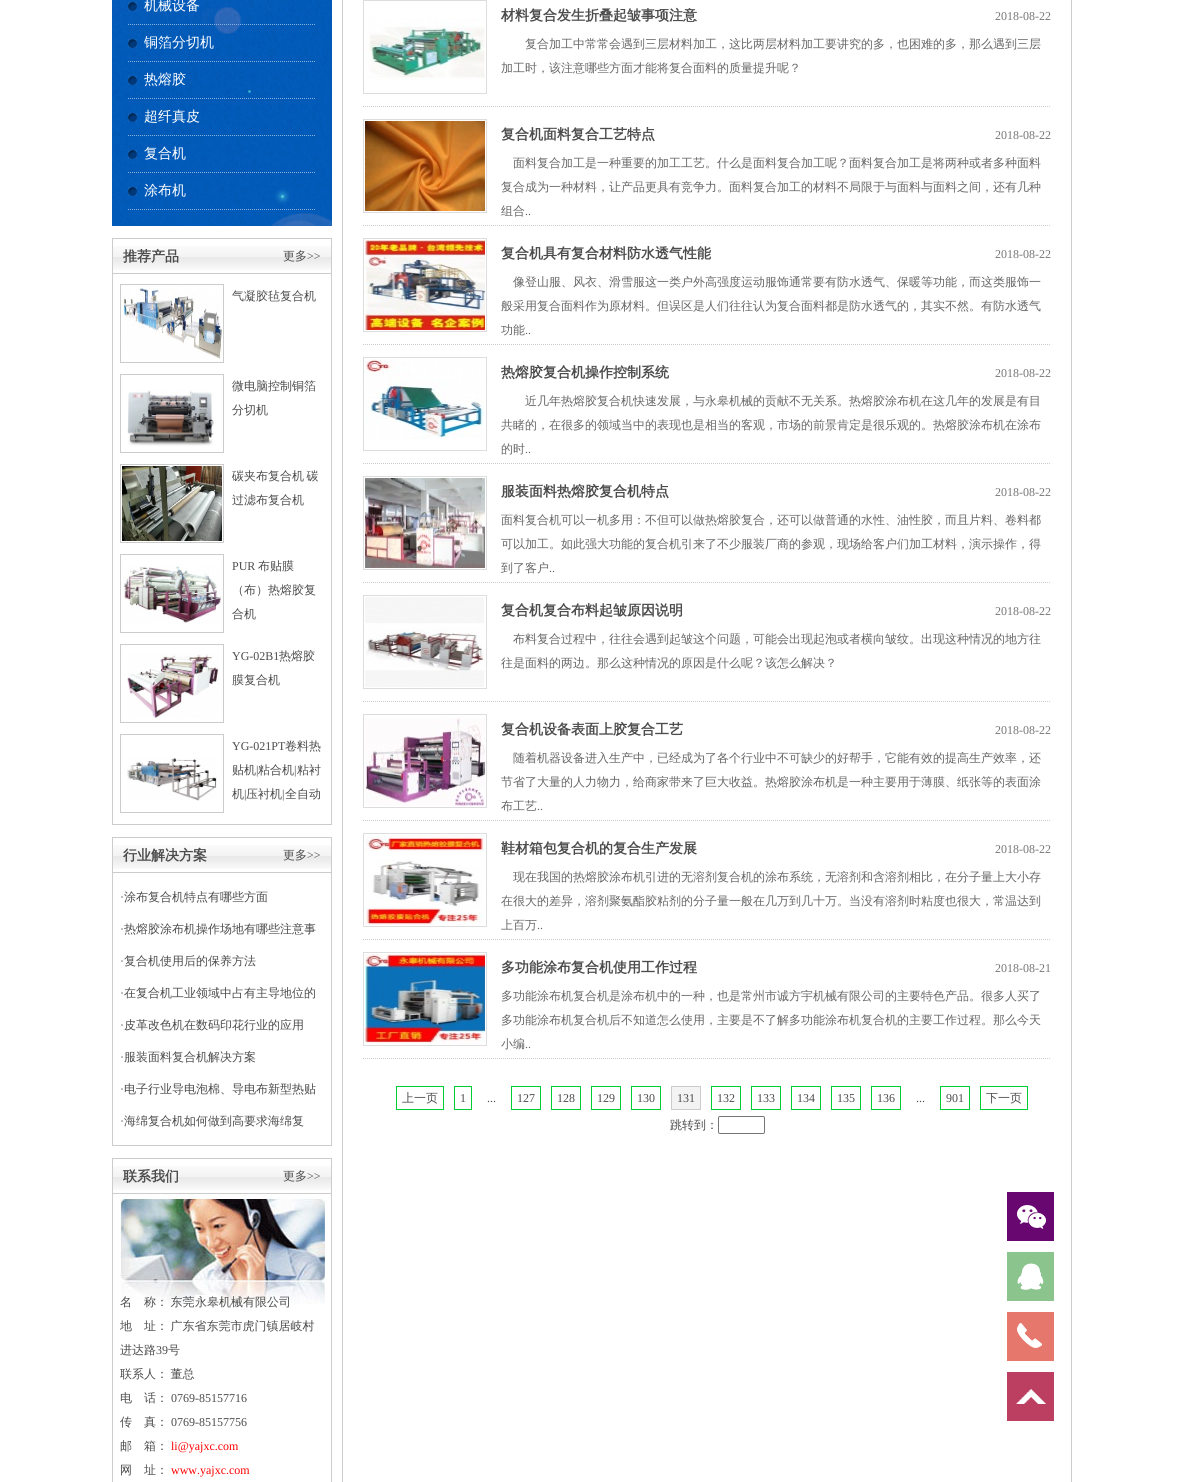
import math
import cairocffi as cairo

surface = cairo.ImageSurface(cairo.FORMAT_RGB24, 1184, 1482)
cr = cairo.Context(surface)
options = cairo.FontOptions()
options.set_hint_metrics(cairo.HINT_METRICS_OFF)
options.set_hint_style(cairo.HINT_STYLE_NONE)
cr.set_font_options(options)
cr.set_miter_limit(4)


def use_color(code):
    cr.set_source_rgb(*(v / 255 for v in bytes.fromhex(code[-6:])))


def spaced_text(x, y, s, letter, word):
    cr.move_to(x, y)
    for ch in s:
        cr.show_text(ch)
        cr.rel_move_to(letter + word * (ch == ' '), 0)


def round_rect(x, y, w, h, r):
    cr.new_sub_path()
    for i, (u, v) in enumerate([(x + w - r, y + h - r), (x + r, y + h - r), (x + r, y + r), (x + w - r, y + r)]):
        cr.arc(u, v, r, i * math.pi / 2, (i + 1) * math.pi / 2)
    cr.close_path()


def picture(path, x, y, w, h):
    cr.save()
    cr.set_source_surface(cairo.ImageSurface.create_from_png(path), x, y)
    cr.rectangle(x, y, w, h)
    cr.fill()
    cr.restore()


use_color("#ffffff")
cr.paint()
picture("img1.png", 112, 0, 960, 1482)
picture("img2.png", 112, 0, 220, 226)
picture("img3.png", 128, 2, 9, 9)
cr.new_path()
cr.move_to(128, 24.5)
cr.line_to(316, 24.5)
use_color("#88b1de")
cr.set_line_width(1)
cr.set_dash([1, 1])
cr.stroke()
cr.select_font_face("WenQuanYi Zen Hei Medium")
cr.set_font_size(14)
use_color("#ffffff")
cr.move_to(144, 10)
cr.show_text("机械设备")
picture("img3.png", 128, 39, 9, 9)
cr.new_path()
cr.move_to(128, 61.5)
cr.line_to(316, 61.5)
use_color("#88b1de")
cr.stroke()
use_color("#ffffff")
cr.move_to(144, 47)
cr.show_text("铜箔分切机")
picture("img3.png", 128, 76, 9, 9)
cr.new_path()
cr.move_to(128, 98.5)
cr.line_to(316, 98.5)
use_color("#88b1de")
cr.stroke()
use_color("#ffffff")
cr.move_to(144, 84)
cr.show_text("热熔胶")
picture("img3.png", 128, 113, 9, 9)
cr.new_path()
cr.move_to(128, 135.5)
cr.line_to(316, 135.5)
use_color("#88b1de")
cr.stroke()
use_color("#ffffff")
cr.move_to(144, 121)
cr.show_text("超纤真皮")
picture("img3.png", 128, 150, 9, 9)
cr.new_path()
cr.move_to(128, 172.5)
cr.line_to(316, 172.5)
use_color("#88b1de")
cr.stroke()
use_color("#ffffff")
cr.move_to(144, 158)
cr.show_text("复合机")
picture("img3.png", 128, 187, 9, 9)
cr.new_path()
cr.move_to(128, 209.5)
cr.line_to(316, 209.5)
use_color("#88b1de")
cr.stroke()
use_color("#ffffff")
cr.move_to(144, 195)
cr.show_text("涂布机")
cr.rectangle(112, 226, 220, 47)
cr.fill()
picture("img4.png", 113, 246, 218, 24)
cr.rectangle(112.5, 238.5, 219, 35)
use_color("#cccccc")
cr.set_dash([])
cr.stroke()
cr.select_font_face("WenQuanYi Zen Hei", cairo.FONT_SLANT_NORMAL, cairo.FONT_WEIGHT_BOLD)
use_color("#4c4c4c")
cr.move_to(123, 261)
cr.show_text("推荐产品")
cr.select_font_face("WenQuanYi Zen Hei Medium")
cr.set_font_size(12)
cr.move_to(283, 260)
cr.show_text("更多")
cr.select_font_face("Liberation Serif")
cr.move_to(307, 260)
cr.show_text(">>")
use_color("#cccccc")
cr.rectangle(112, 824, 220, 1)
cr.fill()
cr.rectangle(120.5, 284.5, 103, 78)
cr.stroke()
picture("img5.png", 123, 286, 99, 73)
cr.select_font_face("WenQuanYi Zen Hei Medium")
use_color("#4c4c4c")
cr.move_to(232, 300)
cr.show_text("气凝胶毡复合机")
cr.rectangle(120.5, 374.5, 103, 78)
use_color("#cccccc")
cr.stroke()
picture("img6.png", 127, 390, 87, 56)
use_color("#4c4c4c")
cr.move_to(232, 390)
cr.show_text("微电脑控制铜箔")
cr.move_to(232, 414)
cr.show_text("分切机")
cr.rectangle(120.5, 464.5, 103, 78)
use_color("#cccccc")
cr.stroke()
picture("img7.png", 122, 466, 100, 75)
use_color("#4c4c4c")
spaced_text(232, 480, "碳夹布复合机 碳", 0, -1)
cr.move_to(232, 504)
cr.show_text("过滤布复合机")
cr.rectangle(120.5, 554.5, 103, 78)
use_color("#cccccc")
cr.stroke()
picture("img8.png", 123, 566, 99, 57)
cr.select_font_face("Liberation Serif")
use_color("#4c4c4c")
cr.move_to(232, 570)
cr.show_text("PUR")
cr.select_font_face("WenQuanYi Zen Hei Medium")
cr.move_to(258, 570)
cr.show_text("布贴膜")
cr.move_to(232, 594)
cr.show_text("（布）热熔胶复")
cr.move_to(232, 618)
cr.show_text("合机")
cr.rectangle(120.5, 644.5, 103, 78)
use_color("#cccccc")
cr.stroke()
picture("img9.png", 127, 653, 92, 65)
cr.select_font_face("Liberation Serif")
use_color("#4c4c4c")
cr.move_to(232, 660)
cr.show_text("YG-02B1")
cr.select_font_face("WenQuanYi Zen Hei Medium")
cr.move_to(279, 660)
cr.show_text("热熔胶")
cr.move_to(232, 684)
cr.show_text("膜复合机")
cr.rectangle(120.5, 734.5, 103, 78)
use_color("#cccccc")
cr.stroke()
picture("img10.png", 127, 758, 90, 43)
cr.select_font_face("Liberation Serif")
use_color("#4c4c4c")
cr.move_to(232, 750)
cr.show_text("YG-021PT")
cr.select_font_face("WenQuanYi Zen Hei Medium")
cr.move_to(285, 750)
cr.show_text("卷料热")
cr.move_to(232, 774)
cr.show_text("贴机")
cr.select_font_face("Liberation Serif")
cr.move_to(256, 774)
cr.show_text("|")
cr.select_font_face("WenQuanYi Zen Hei Medium")
cr.move_to(258, 774)
cr.show_text("粘合机")
cr.select_font_face("Liberation Serif")
cr.move_to(294, 774)
cr.show_text("|")
cr.select_font_face("WenQuanYi Zen Hei Medium")
cr.move_to(297, 774)
cr.show_text("粘衬")
cr.move_to(232, 798)
cr.show_text("机")
cr.select_font_face("Liberation Serif")
cr.move_to(244, 798)
cr.show_text("|")
cr.select_font_face("WenQuanYi Zen Hei Medium")
cr.move_to(246, 798)
cr.show_text("压衬机")
cr.select_font_face("Liberation Serif")
cr.move_to(282, 798)
cr.show_text("|")
cr.select_font_face("WenQuanYi Zen Hei Medium")
cr.move_to(285, 798)
cr.show_text("全自动")
use_color("#ffffff")
cr.rectangle(112, 825, 220, 47)
cr.fill()
picture("img4.png", 113, 845, 218, 24)
cr.rectangle(112.5, 837.5, 219, 35)
use_color("#cccccc")
cr.stroke()
cr.select_font_face("WenQuanYi Zen Hei", cairo.FONT_SLANT_NORMAL, cairo.FONT_WEIGHT_BOLD)
cr.set_font_size(14)
use_color("#4c4c4c")
cr.move_to(123, 860)
cr.show_text("行业解决方案")
cr.select_font_face("WenQuanYi Zen Hei Medium")
cr.set_font_size(12)
cr.move_to(283, 859)
cr.show_text("更多")
cr.select_font_face("Liberation Serif")
cr.move_to(307, 859)
cr.show_text(">>")
use_color("#cccccc")
cr.rectangle(112, 1145, 220, 1)
cr.fill()
use_color("#4c4c4c")
cr.move_to(120, 901)
cr.show_text("·")
cr.select_font_face("WenQuanYi Zen Hei Medium")
cr.move_to(124, 901)
cr.show_text("涂布复合机特点有哪些方面")
cr.select_font_face("Liberation Serif")
cr.move_to(120, 933)
cr.show_text("·")
cr.select_font_face("WenQuanYi Zen Hei Medium")
cr.move_to(124, 933)
cr.show_text("热熔胶涂布机操作场地有哪些注意事")
cr.select_font_face("Liberation Serif")
cr.move_to(120, 965)
cr.show_text("·")
cr.select_font_face("WenQuanYi Zen Hei Medium")
cr.move_to(124, 965)
cr.show_text("复合机使用后的保养方法")
cr.select_font_face("Liberation Serif")
cr.move_to(120, 997)
cr.show_text("·")
cr.select_font_face("WenQuanYi Zen Hei Medium")
cr.move_to(124, 997)
cr.show_text("在复合机工业领域中占有主导地位的")
cr.select_font_face("Liberation Serif")
cr.move_to(120, 1029)
cr.show_text("·")
cr.select_font_face("WenQuanYi Zen Hei Medium")
cr.move_to(124, 1029)
cr.show_text("皮革改色机在数码印花行业的应用")
cr.select_font_face("Liberation Serif")
cr.move_to(120, 1061)
cr.show_text("·")
cr.select_font_face("WenQuanYi Zen Hei Medium")
cr.move_to(124, 1061)
cr.show_text("服装面料复合机解决方案")
cr.select_font_face("Liberation Serif")
cr.move_to(120, 1093)
cr.show_text("·")
cr.select_font_face("WenQuanYi Zen Hei Medium")
cr.move_to(124, 1093)
cr.show_text("电子行业导电泡棉、导电布新型热贴")
cr.select_font_face("Liberation Serif")
cr.move_to(120, 1125)
cr.show_text("·")
cr.select_font_face("WenQuanYi Zen Hei Medium")
cr.move_to(124, 1125)
cr.show_text("海绵复合机如何做到高要求海绵复")
use_color("#ffffff")
cr.rectangle(112, 1146, 220, 47)
cr.fill()
picture("img4.png", 113, 1166, 218, 24)
cr.rectangle(112.5, 1158.5, 219, 35)
use_color("#cccccc")
cr.stroke()
cr.select_font_face("WenQuanYi Zen Hei", cairo.FONT_SLANT_NORMAL, cairo.FONT_WEIGHT_BOLD)
cr.set_font_size(14)
use_color("#4c4c4c")
cr.move_to(123, 1181)
cr.show_text("联系我们")
cr.select_font_face("WenQuanYi Zen Hei Medium")
cr.set_font_size(12)
cr.move_to(283, 1180)
cr.show_text("更多")
cr.select_font_face("Liberation Serif")
cr.move_to(307, 1180)
cr.show_text(">>")
picture("img11.png", 120, 1194, 205, 110)
cr.select_font_face("WenQuanYi Zen Hei Medium")
spaced_text(120, 1306, "名　称： 东莞", 0, -1)
use_color("#ffffff")
cr.rectangle(195, 1295, 24, 9)
cr.fill()
use_color("#4c4c4c")
cr.move_to(195, 1306)
cr.show_text("永皋机械有限公司")
spaced_text(120, 1330, "地　址： 广东省东莞市虎门镇居岐村", 0, -1)
cr.move_to(120, 1354)
cr.show_text("进达路")
cr.select_font_face("Liberation Serif")
cr.move_to(156, 1354)
cr.show_text("39")
cr.select_font_face("WenQuanYi Zen Hei Medium")
cr.move_to(168, 1354)
cr.show_text("号")
spaced_text(120, 1378, "联系人： 董总", 0, -1)
cr.move_to(120, 1402)
cr.show_text("电　话：")
cr.select_font_face("Liberation Serif")
cr.move_to(171, 1402)
cr.show_text("0769-85157716")
cr.select_font_face("WenQuanYi Zen Hei Medium")
cr.move_to(120, 1426)
cr.show_text("传　真：")
cr.select_font_face("Liberation Serif")
cr.move_to(171, 1426)
cr.show_text("0769-85157756")
cr.select_font_face("WenQuanYi Zen Hei Medium")
cr.move_to(120, 1450)
cr.show_text("邮　箱：")
cr.select_font_face("Liberation Serif")
use_color("#ff0000")
cr.move_to(171, 1450)
cr.show_text("li@yajxc.com")
cr.select_font_face("WenQuanYi Zen Hei Medium")
use_color("#4c4c4c")
cr.move_to(120, 1474)
cr.show_text("网　址：")
cr.select_font_face("Liberation Serif")
use_color("#ff0000")
cr.move_to(171, 1474)
cr.show_text("www.yajxc.com")
cr.new_path()
cr.move_to(363, 106.5)
cr.line_to(1051, 106.5)
use_color("#cccccc")
cr.set_dash([1, 1])
cr.stroke()
cr.rectangle(363.5, 0.5, 123, 93)
use_color("#dddddd")
cr.set_dash([])
cr.stroke()
picture("img12.png", 365, 18, 120, 62)
cr.select_font_face("WenQuanYi Zen Hei", cairo.FONT_SLANT_NORMAL, cairo.FONT_WEIGHT_BOLD)
cr.set_font_size(14)
use_color("#4c4c4c")
cr.move_to(501, 20)
cr.show_text("材料复合发生折叠起皱事项注意")
cr.select_font_face("Liberation Serif")
cr.set_font_size(12)
use_color("#777777")
cr.move_to(995, 20)
cr.show_text("2018-08-22")
cr.select_font_face("WenQuanYi Zen Hei Medium")
use_color("#666666")
cr.move_to(525, 48)
cr.show_text("复合加工中常常会遇到三层材料加工，这比两层材料加工要讲究的多，也困难的多，那么遇到三层")
cr.move_to(501, 72)
cr.show_text("加工时，该注意哪些方面才能将复合面料的质量提升呢？")
cr.new_path()
cr.move_to(363, 225.5)
cr.line_to(1051, 225.5)
use_color("#cccccc")
cr.set_dash([1, 1])
cr.stroke()
cr.rectangle(363.5, 119.5, 123, 93)
use_color("#dddddd")
cr.set_dash([])
cr.stroke()
picture("img13.png", 365, 121, 120, 90)
cr.select_font_face("WenQuanYi Zen Hei", cairo.FONT_SLANT_NORMAL, cairo.FONT_WEIGHT_BOLD)
cr.set_font_size(14)
use_color("#4c4c4c")
cr.move_to(501, 139)
cr.show_text("复合机面料复合工艺特点")
cr.select_font_face("Liberation Serif")
cr.set_font_size(12)
use_color("#777777")
cr.move_to(995, 139)
cr.show_text("2018-08-22")
cr.select_font_face("WenQuanYi Zen Hei Medium")
use_color("#666666")
cr.move_to(513, 167)
cr.show_text("面料复合加工是一种重要的加工工艺。什么是面料复合加工呢？面料复合加工是将两种或者多种面料")
cr.move_to(501, 191)
cr.show_text("复合成为一种材料，让产品更具有竞争力。面料复合加工的材料不局限于与面料与面料之间，还有几种")
cr.move_to(501, 215)
cr.show_text("组合")
cr.select_font_face("Liberation Serif")
cr.move_to(525, 215)
cr.show_text("..")
cr.new_path()
cr.move_to(363, 344.5)
cr.line_to(1051, 344.5)
use_color("#cccccc")
cr.set_dash([1, 1])
cr.stroke()
cr.rectangle(363.5, 238.5, 123, 93)
use_color("#dddddd")
cr.set_dash([])
cr.stroke()
picture("img14.png", 365, 240, 120, 90)
cr.select_font_face("WenQuanYi Zen Hei", cairo.FONT_SLANT_NORMAL, cairo.FONT_WEIGHT_BOLD)
cr.set_font_size(14)
use_color("#4c4c4c")
cr.move_to(501, 258)
cr.show_text("复合机具有复合材料防水透气性能")
cr.select_font_face("Liberation Serif")
cr.set_font_size(12)
use_color("#777777")
cr.move_to(995, 258)
cr.show_text("2018-08-22")
cr.select_font_face("WenQuanYi Zen Hei Medium")
use_color("#666666")
cr.move_to(513, 286)
cr.show_text("像登山服、风衣、滑雪服这一类户外高强度运动服饰通常要有防水透气、保暖等功能，而这类服饰一")
cr.move_to(501, 310)
cr.show_text("般采用复合面料作为原材料。但误区是人们往往认为复合面料都是防水透气的，其实不然。有防水透气")
cr.move_to(501, 334)
cr.show_text("功能")
cr.select_font_face("Liberation Serif")
cr.move_to(525, 334)
cr.show_text("..")
cr.new_path()
cr.move_to(363, 463.5)
cr.line_to(1051, 463.5)
use_color("#cccccc")
cr.set_dash([1, 1])
cr.stroke()
cr.rectangle(363.5, 357.5, 123, 93)
use_color("#dddddd")
cr.set_dash([])
cr.stroke()
picture("img15.png", 365, 359, 120, 80)
cr.select_font_face("WenQuanYi Zen Hei", cairo.FONT_SLANT_NORMAL, cairo.FONT_WEIGHT_BOLD)
cr.set_font_size(14)
use_color("#4c4c4c")
cr.move_to(501, 377)
cr.show_text("热熔胶复合机操作控制系统")
cr.select_font_face("Liberation Serif")
cr.set_font_size(12)
use_color("#777777")
cr.move_to(995, 377)
cr.show_text("2018-08-22")
cr.select_font_face("WenQuanYi Zen Hei Medium")
use_color("#666666")
cr.move_to(525, 405)
cr.show_text("近几年热熔胶复合机快速发展，与永皋机械的贡献不无关系。热熔胶涂布机在这几年的发展是有目")
cr.move_to(501, 429)
cr.show_text("共睹的，在很多的领域当中的表现也是相当的客观，市场的前景肯定是很乐观的。热熔胶涂布机在涂布")
cr.move_to(501, 453)
cr.show_text("的时")
cr.select_font_face("Liberation Serif")
cr.move_to(525, 453)
cr.show_text("..")
cr.new_path()
cr.move_to(363, 582.5)
cr.line_to(1051, 582.5)
use_color("#cccccc")
cr.set_dash([1, 1])
cr.stroke()
cr.rectangle(363.5, 476.5, 123, 93)
use_color("#dddddd")
cr.set_dash([])
cr.stroke()
picture("img16.png", 365, 478, 120, 90)
cr.select_font_face("WenQuanYi Zen Hei", cairo.FONT_SLANT_NORMAL, cairo.FONT_WEIGHT_BOLD)
cr.set_font_size(14)
use_color("#4c4c4c")
cr.move_to(501, 496)
cr.show_text("服装面料热熔胶复合机特点")
cr.select_font_face("Liberation Serif")
cr.set_font_size(12)
use_color("#777777")
cr.move_to(995, 496)
cr.show_text("2018-08-22")
cr.select_font_face("WenQuanYi Zen Hei Medium")
use_color("#666666")
cr.move_to(501, 524)
cr.show_text("面料复合机可以一机多用：不但可以做热熔胶复合，还可以做普通的水性、油性胶，而且片料、卷料都")
cr.move_to(501, 548)
cr.show_text("可以加工。如此强大功能的复合机引来了不少服装厂商的参观，现场给客户们加工材料，演示操作，得")
cr.move_to(501, 572)
cr.show_text("到了客户")
cr.select_font_face("Liberation Serif")
cr.move_to(549, 572)
cr.show_text("..")
cr.new_path()
cr.move_to(363, 701.5)
cr.line_to(1051, 701.5)
use_color("#cccccc")
cr.set_dash([1, 1])
cr.stroke()
cr.rectangle(363.5, 595.5, 123, 93)
use_color("#dddddd")
cr.set_dash([])
cr.stroke()
picture("img17.png", 365, 597, 120, 90)
cr.select_font_face("WenQuanYi Zen Hei", cairo.FONT_SLANT_NORMAL, cairo.FONT_WEIGHT_BOLD)
cr.set_font_size(14)
use_color("#4c4c4c")
cr.move_to(501, 615)
cr.show_text("复合机复合布料起皱原因说明")
cr.select_font_face("Liberation Serif")
cr.set_font_size(12)
use_color("#777777")
cr.move_to(995, 615)
cr.show_text("2018-08-22")
cr.select_font_face("WenQuanYi Zen Hei Medium")
use_color("#666666")
cr.move_to(513, 643)
cr.show_text("布料复合过程中，往往会遇到起皱这个问题，可能会出现起泡或者横向皱纹。出现这种情况的地方往")
cr.move_to(501, 667)
cr.show_text("往是面料的两边。那么这种情况的原因是什么呢？该怎么解决？")
cr.new_path()
cr.move_to(363, 820.5)
cr.line_to(1051, 820.5)
use_color("#cccccc")
cr.set_dash([1, 1])
cr.stroke()
cr.rectangle(363.5, 714.5, 123, 93)
use_color("#dddddd")
cr.set_dash([])
cr.stroke()
picture("img18.png", 365, 716, 120, 90)
cr.select_font_face("WenQuanYi Zen Hei", cairo.FONT_SLANT_NORMAL, cairo.FONT_WEIGHT_BOLD)
cr.set_font_size(14)
use_color("#4c4c4c")
cr.move_to(501, 734)
cr.show_text("复合机设备表面上胶复合工艺")
cr.select_font_face("Liberation Serif")
cr.set_font_size(12)
use_color("#777777")
cr.move_to(995, 734)
cr.show_text("2018-08-22")
cr.select_font_face("WenQuanYi Zen Hei Medium")
use_color("#666666")
cr.move_to(513, 762)
cr.show_text("随着机器设备进入生产中，已经成为了各个行业中不可缺少的好帮手，它能有效的提高生产效率，还")
cr.move_to(501, 786)
cr.show_text("节省了大量的人力物力，给商家带来了巨大收益。热熔胶涂布机是一种主要用于薄膜、纸张等的表面涂")
cr.move_to(501, 810)
cr.show_text("布工艺")
cr.select_font_face("Liberation Serif")
cr.move_to(537, 810)
cr.show_text("..")
cr.new_path()
cr.move_to(363, 939.5)
cr.line_to(1051, 939.5)
use_color("#cccccc")
cr.set_dash([1, 1])
cr.stroke()
cr.rectangle(363.5, 833.5, 123, 93)
use_color("#dddddd")
cr.set_dash([])
cr.stroke()
picture("img19.png", 365, 835, 120, 90)
cr.select_font_face("WenQuanYi Zen Hei", cairo.FONT_SLANT_NORMAL, cairo.FONT_WEIGHT_BOLD)
cr.set_font_size(14)
use_color("#4c4c4c")
cr.move_to(501, 853)
cr.show_text("鞋材箱包复合机的复合生产发展")
cr.select_font_face("Liberation Serif")
cr.set_font_size(12)
use_color("#777777")
cr.move_to(995, 853)
cr.show_text("2018-08-22")
cr.select_font_face("WenQuanYi Zen Hei Medium")
use_color("#666666")
cr.move_to(513, 881)
cr.show_text("现在我国的热熔胶涂布机引进的无溶剂复合机的涂布系统，无溶剂和含溶剂相比，在分子量上大小存")
cr.move_to(501, 905)
cr.show_text("在很大的差异，溶剂聚氨酯胶粘剂的分子量一般在几万到几十万。当没有溶剂时粘度也很大，常温达到")
cr.move_to(501, 929)
cr.show_text("上百万")
cr.select_font_face("Liberation Serif")
cr.move_to(537, 929)
cr.show_text("..")
cr.new_path()
cr.move_to(363, 1058.5)
cr.line_to(1051, 1058.5)
use_color("#cccccc")
cr.set_dash([1, 1])
cr.stroke()
cr.rectangle(363.5, 952.5, 123, 93)
use_color("#dddddd")
cr.set_dash([])
cr.stroke()
picture("img20.png", 365, 954, 120, 90)
cr.select_font_face("WenQuanYi Zen Hei", cairo.FONT_SLANT_NORMAL, cairo.FONT_WEIGHT_BOLD)
cr.set_font_size(14)
use_color("#4c4c4c")
cr.move_to(501, 972)
cr.show_text("多功能涂布复合机使用工作过程")
cr.select_font_face("Liberation Serif")
cr.set_font_size(12)
use_color("#777777")
cr.move_to(995, 972)
cr.show_text("2018-08-21")
cr.select_font_face("WenQuanYi Zen Hei Medium")
use_color("#666666")
cr.move_to(501, 1000)
cr.show_text("多功能涂布机复合机是涂布机中的一种，也是常州市诚方宇机械有限公司的主要特色产品。很多人买了")
cr.move_to(501, 1024)
cr.show_text("多功能涂布机复合机后不知道怎么使用，主要是不了解多功能涂布机复合机的主要工作过程。那么今天")
cr.move_to(501, 1048)
cr.show_text("小编")
cr.select_font_face("Liberation Serif")
cr.move_to(525, 1048)
cr.show_text("..")
cr.rectangle(396.5, 1086.5, 47, 23)
use_color("#00cc33")
cr.stroke()
cr.select_font_face("WenQuanYi Zen Hei Medium")
use_color("#4c4c4c")
cr.move_to(402, 1102)
cr.show_text("上一页")
cr.rectangle(454.5, 1086.5, 17, 23)
use_color("#00cc33")
cr.stroke()
cr.select_font_face("Liberation Serif")
use_color("#4c4c4c")
cr.move_to(460, 1102)
cr.show_text("1")
cr.move_to(487, 1102)
cr.show_text("...")
cr.rectangle(511.5, 1086.5, 29, 23)
use_color("#00cc33")
cr.stroke()
use_color("#4c4c4c")
cr.move_to(517, 1102)
cr.show_text("127")
cr.rectangle(551.5, 1086.5, 29, 23)
use_color("#00cc33")
cr.stroke()
use_color("#4c4c4c")
cr.move_to(557, 1102)
cr.show_text("128")
cr.rectangle(591.5, 1086.5, 29, 23)
use_color("#00cc33")
cr.stroke()
use_color("#4c4c4c")
cr.move_to(597, 1102)
cr.show_text("129")
cr.rectangle(631.5, 1086.5, 29, 23)
use_color("#00cc33")
cr.stroke()
use_color("#4c4c4c")
cr.move_to(637, 1102)
cr.show_text("130")
use_color("#f3f3f3")
cr.rectangle(671.5, 1086.5, 29, 23)
cr.fill_preserve()
use_color("#cccccc")
cr.stroke()
use_color("#4c4c4c")
cr.move_to(677, 1102)
cr.show_text("131")
cr.rectangle(711.5, 1086.5, 29, 23)
use_color("#00cc33")
cr.stroke()
use_color("#4c4c4c")
cr.move_to(717, 1102)
cr.show_text("132")
cr.rectangle(751.5, 1086.5, 29, 23)
use_color("#00cc33")
cr.stroke()
use_color("#4c4c4c")
cr.move_to(757, 1102)
cr.show_text("133")
cr.rectangle(791.5, 1086.5, 29, 23)
use_color("#00cc33")
cr.stroke()
use_color("#4c4c4c")
cr.move_to(797, 1102)
cr.show_text("134")
cr.rectangle(831.5, 1086.5, 29, 23)
use_color("#00cc33")
cr.stroke()
use_color("#4c4c4c")
cr.move_to(837, 1102)
cr.show_text("135")
cr.rectangle(871.5, 1086.5, 29, 23)
use_color("#00cc33")
cr.stroke()
use_color("#4c4c4c")
cr.move_to(877, 1102)
cr.show_text("136")
cr.move_to(916, 1102)
cr.show_text("...")
cr.rectangle(940.5, 1086.5, 29, 23)
use_color("#00cc33")
cr.stroke()
use_color("#4c4c4c")
cr.move_to(946, 1102)
cr.show_text("901")
cr.rectangle(980.5, 1086.5, 47, 23)
use_color("#00cc33")
cr.stroke()
cr.select_font_face("WenQuanYi Zen Hei Medium")
use_color("#4c4c4c")
cr.move_to(986, 1102)
cr.show_text("下一页")
cr.move_to(670, 1129)
cr.show_text("跳转到：")
round_rect(718.5, 1116.5, 46, 17, 1.5)
use_color("#767676")
cr.stroke()
picture("img21.png", 1007, 1192, 47, 49)
picture("img22.png", 1007, 1252, 47, 49)
picture("img23.png", 1007, 1312, 47, 49)
picture("img24.png", 1007, 1372, 47, 49)
surface.write_to_png("result.png")
